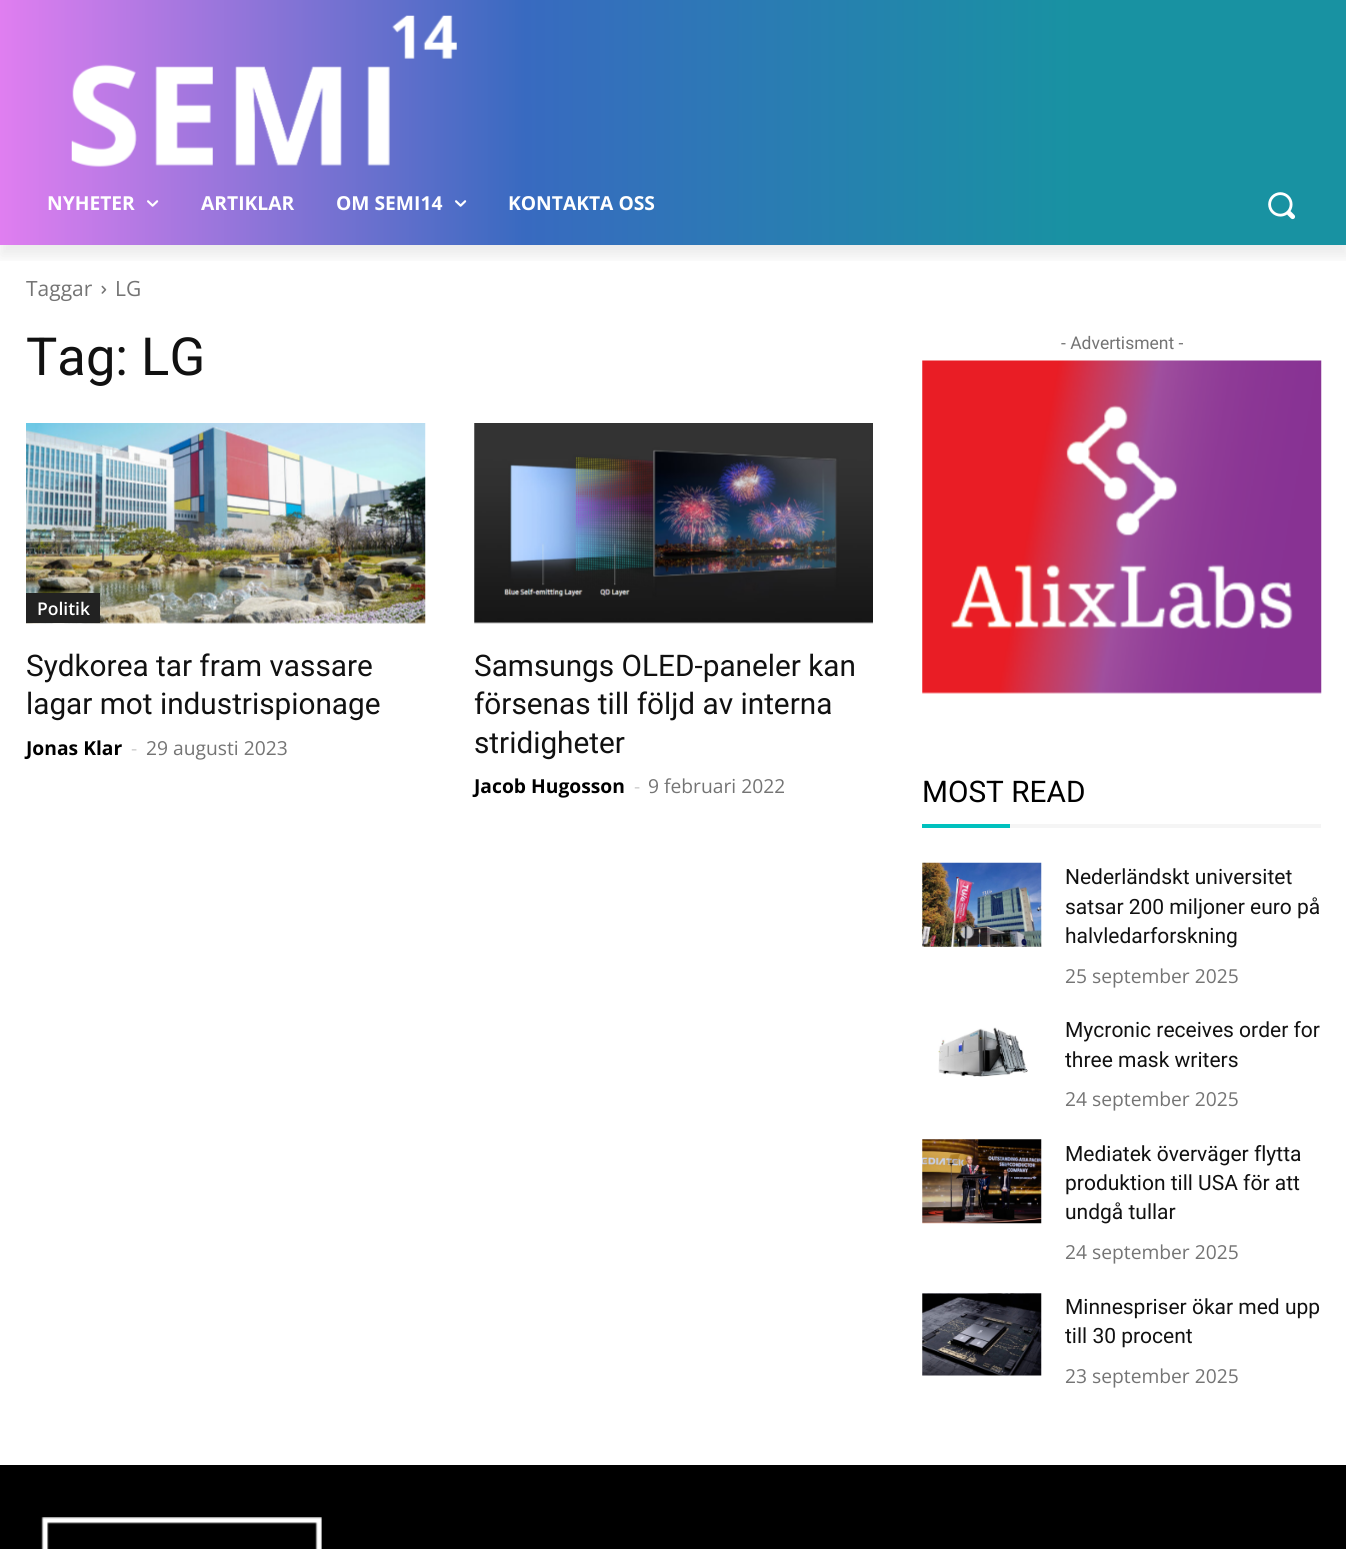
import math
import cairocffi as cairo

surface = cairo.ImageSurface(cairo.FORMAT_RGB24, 1346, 1549)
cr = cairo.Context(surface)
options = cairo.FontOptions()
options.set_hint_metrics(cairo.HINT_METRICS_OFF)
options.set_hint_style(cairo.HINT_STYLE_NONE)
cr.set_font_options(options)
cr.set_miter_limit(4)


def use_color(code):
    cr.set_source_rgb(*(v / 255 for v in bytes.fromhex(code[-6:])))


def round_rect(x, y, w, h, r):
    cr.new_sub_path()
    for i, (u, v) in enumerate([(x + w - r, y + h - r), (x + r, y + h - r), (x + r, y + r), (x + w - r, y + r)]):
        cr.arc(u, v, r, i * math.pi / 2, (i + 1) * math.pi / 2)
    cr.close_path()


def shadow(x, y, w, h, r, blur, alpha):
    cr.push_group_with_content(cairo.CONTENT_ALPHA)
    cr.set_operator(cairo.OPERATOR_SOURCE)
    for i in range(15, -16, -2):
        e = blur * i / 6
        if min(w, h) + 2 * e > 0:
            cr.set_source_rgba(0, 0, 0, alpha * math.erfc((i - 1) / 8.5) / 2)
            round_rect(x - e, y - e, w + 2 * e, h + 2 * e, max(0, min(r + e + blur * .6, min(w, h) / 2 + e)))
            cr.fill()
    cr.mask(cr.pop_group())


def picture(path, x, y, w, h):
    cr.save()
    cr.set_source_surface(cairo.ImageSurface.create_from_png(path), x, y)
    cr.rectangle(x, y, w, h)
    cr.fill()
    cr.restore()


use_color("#ffffff")
cr.paint()
gradient = cairo.LinearGradient(0, 123, 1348, 122)
gradient.add_color_stop_rgba(0, 0.878, 0.494, 0.941, 1)
gradient.add_color_stop_rgba(0.39, 0.22, 0.416, 0.753, 1)
gradient.add_color_stop_rgba(0.8, 0.094, 0.573, 0.635, 1)
gradient.add_color_stop_rgba(1, 0.094, 0.573, 0.635, 1)
cr.set_source(gradient)
cr.rectangle(0, 0, 1346, 245)
cr.fill()
picture("img1.png", 71, 15, 386, 152)
cr.save()
cr.rectangle(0, 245, 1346, 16)
cr.clip()
use_color("#000000")
shadow(0, 11, 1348, 245, 0, 7, 0.08)
cr.restore()
cr.select_font_face("Open Sans", cairo.FONT_SLANT_NORMAL, cairo.FONT_WEIGHT_BOLD)
cr.set_font_size(19.25)
use_color("#ffffff")
cr.move_to(47, 210)
cr.show_text("NYHETER")
picture("img2.png", 147, 200, 12, 7)
cr.move_to(201, 210)
cr.show_text("ARTIKLAR")
cr.move_to(336, 210)
cr.show_text("OM SEMI14")
picture("img3.png", 455, 200, 12, 7)
cr.move_to(508, 210)
cr.show_text("KONTAKTA OSS")
picture("img4.png", 1268, 192, 28, 28)
cr.select_font_face("Open Sans")
cr.set_font_size(21)
use_color("#747474")
cr.move_to(26, 296)
cr.show_text("Taggar")
picture("img5.png", 101, 285, 6, 9)
cr.move_to(115, 296)
cr.show_text("LG")
cr.select_font_face("Roboto")
cr.set_font_size(52.5)
use_color("#111111")
cr.move_to(26, 375)
cr.show_text("Tag: LG")
picture("img6.png", 26, 423, 400, 201)
use_color("#222222")
cr.rectangle(26, 593, 74, 30)
cr.fill()
cr.select_font_face("Open Sans SemiBold")
cr.set_font_size(17.5)
use_color("#ffffff")
cr.move_to(37, 615)
cr.show_text("Politik")
cr.select_font_face("Roboto")
cr.set_font_size(29.75)
use_color("#111111")
cr.move_to(26, 676)
cr.show_text("Sydkorea tar fram vassare")
cr.move_to(26, 714)
cr.show_text("lagar mot industrispionage")
cr.select_font_face("Open Sans", cairo.FONT_SLANT_NORMAL, cairo.FONT_WEIGHT_BOLD)
cr.set_font_size(19.25)
use_color("#000000")
cr.move_to(26, 755)
cr.show_text("Jonas Klar")
cr.select_font_face("Open Sans")
use_color("#cccccc")
cr.move_to(131, 755)
cr.show_text("-")
use_color("#747474")
cr.move_to(146, 755)
cr.show_text("29 augusti 2023")
picture("img7.png", 474, 423, 399, 201)
cr.select_font_face("Roboto")
cr.set_font_size(29.75)
use_color("#111111")
cr.move_to(474, 676)
cr.show_text("Samsungs OLED-paneler kan")
cr.move_to(474, 714)
cr.show_text("försenas till följd av interna")
cr.move_to(474, 753)
cr.show_text("stridigheter")
cr.select_font_face("Open Sans", cairo.FONT_SLANT_NORMAL, cairo.FONT_WEIGHT_BOLD)
cr.set_font_size(19.25)
use_color("#000000")
cr.move_to(474, 793)
cr.show_text("Jacob Hugosson")
cr.select_font_face("Open Sans")
use_color("#cccccc")
cr.move_to(634, 793)
cr.show_text("-")
use_color("#747474")
cr.move_to(648, 793)
cr.show_text("9 februari 2022")
cr.select_font_face("Roboto")
cr.set_font_size(17.5)
cr.move_to(1061, 349)
cr.show_text("- Advertisment -")
picture("img8.png", 922, 360, 400, 334)
cr.set_font_size(29.75)
use_color("#000000")
cr.move_to(922, 802)
cr.show_text("MOST READ")
use_color("#00c1be")
cr.rectangle(922, 824, 88, 4)
cr.fill()
use_color("#f5f5f5")
cr.rectangle(1010, 824, 311, 4)
cr.fill()
picture("img9.png", 922, 862, 120, 85)
cr.set_font_size(21)
use_color("#111111")
cr.move_to(1065, 884)
cr.show_text("Nederländskt universitet")
cr.move_to(1065, 914)
cr.show_text("satsar 200 miljoner euro på")
cr.move_to(1065, 943)
cr.show_text("halvledarforskning")
cr.select_font_face("Open Sans")
cr.set_font_size(19.25)
use_color("#747474")
cr.move_to(1065, 983)
cr.show_text("25 september 2025")
picture("img10.png", 938, 1027, 90, 50)
cr.select_font_face("Roboto")
cr.set_font_size(21)
use_color("#111111")
cr.move_to(1065, 1037)
cr.show_text("Mycronic receives order for")
cr.move_to(1065, 1067)
cr.show_text("three mask writers")
cr.select_font_face("Open Sans")
cr.set_font_size(19.25)
use_color("#747474")
cr.move_to(1065, 1106)
cr.show_text("24 september 2025")
picture("img11.png", 922, 1139, 120, 85)
cr.select_font_face("Roboto")
cr.set_font_size(21)
use_color("#111111")
cr.move_to(1065, 1161)
cr.show_text("Mediatek överväger flytta")
cr.move_to(1065, 1190)
cr.show_text("produktion till USA för att")
cr.move_to(1065, 1219)
cr.show_text("undgå tullar")
cr.select_font_face("Open Sans")
cr.set_font_size(19.25)
use_color("#747474")
cr.move_to(1065, 1259)
cr.show_text("24 september 2025")
picture("img12.png", 922, 1293, 120, 83)
cr.select_font_face("Roboto")
cr.set_font_size(21)
use_color("#111111")
cr.move_to(1065, 1314)
cr.show_text("Minnespriser ökar med upp")
cr.move_to(1065, 1343)
cr.show_text("till 30 procent")
cr.select_font_face("Open Sans")
cr.set_font_size(19.25)
use_color("#747474")
cr.move_to(1065, 1383)
cr.show_text("23 september 2025")
use_color("#000000")
cr.rectangle(0, 1465, 1346, 84)
cr.fill()
picture("img13.png", 41, 1517, 281, 32)
surface.write_to_png("result.png")
